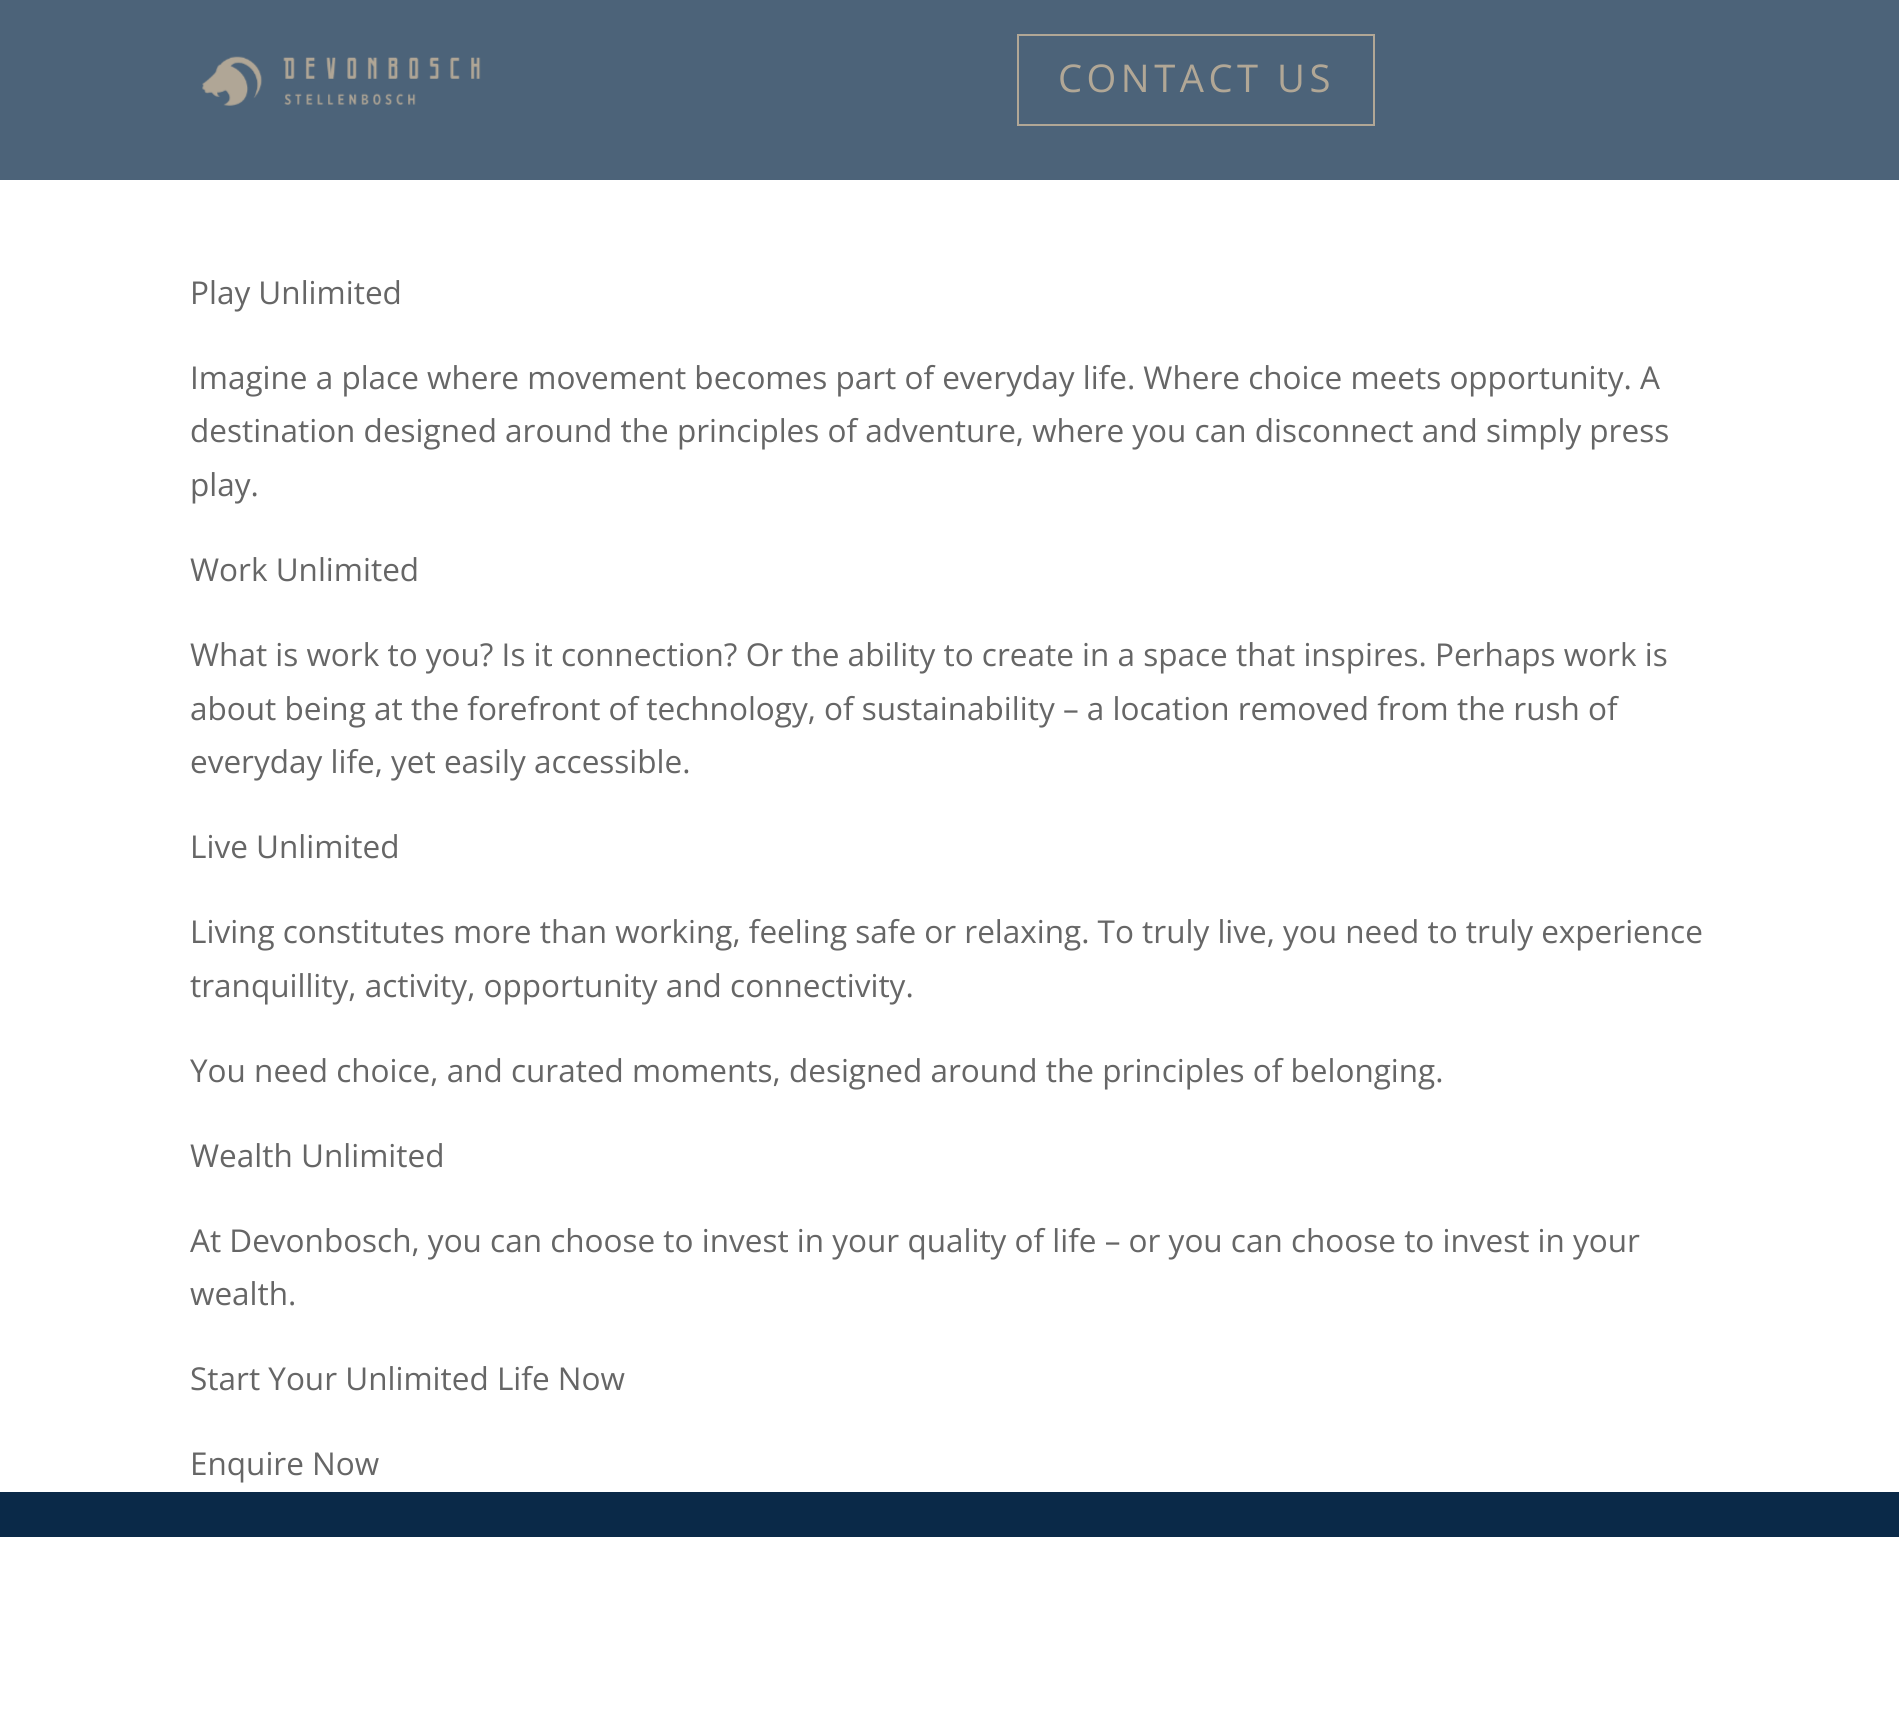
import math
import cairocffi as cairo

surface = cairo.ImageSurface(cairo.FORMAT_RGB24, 1899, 1735)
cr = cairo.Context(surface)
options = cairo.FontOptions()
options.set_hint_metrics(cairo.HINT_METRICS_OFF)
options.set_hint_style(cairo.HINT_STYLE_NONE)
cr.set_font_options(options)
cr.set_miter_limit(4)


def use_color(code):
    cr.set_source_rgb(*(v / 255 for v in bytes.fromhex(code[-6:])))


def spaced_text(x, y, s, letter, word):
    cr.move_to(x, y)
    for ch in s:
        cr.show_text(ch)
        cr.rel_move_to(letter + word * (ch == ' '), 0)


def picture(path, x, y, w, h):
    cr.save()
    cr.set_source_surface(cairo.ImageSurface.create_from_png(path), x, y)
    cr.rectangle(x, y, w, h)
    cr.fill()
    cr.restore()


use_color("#ffffff")
cr.paint()
cr.set_source_rgba(0.039, 0.161, 0.282, 0.73)
cr.rectangle(0, 0, 1899, 180)
cr.fill()
picture("img1.png", 202, 56, 279, 50)
cr.rectangle(1018, 35, 356, 90)
use_color("#b1a796")
cr.stroke()
cr.select_font_face("Open Sans")
cr.set_font_size(38.25)
spaced_text(1058, 92, "CONTACT US", 4.5, 0)
cr.set_font_size(31.5)
use_color("#666666")
cr.move_to(190, 304)
cr.show_text("Play Unlimited")
cr.move_to(190, 389)
cr.show_text("Imagine a place where movement becomes part of everyday life. Where choice meets opportunity. A")
cr.move_to(190, 442)
cr.show_text("destination designed around the principles of adventure, where you can disconnect and simply press")
cr.move_to(190, 496)
cr.show_text("play.")
cr.move_to(190, 581)
cr.show_text("Work Unlimited")
cr.move_to(190, 666)
cr.show_text("What is work to you? Is it connection? Or the ability to create in a space that inspires. Perhaps work is")
cr.move_to(190, 720)
cr.show_text("about being at the forefront of technology, of sustainability – a location removed from the rush of")
cr.move_to(190, 773)
cr.show_text("everyday life, yet easily accessible.")
cr.move_to(190, 858)
cr.show_text("Live Unlimited")
cr.move_to(190, 943)
cr.show_text("Living constitutes more than working, feeling safe or relaxing. To truly live, you need to truly experience")
cr.move_to(190, 997)
cr.show_text("tranquillity, activity, opportunity and connectivity.")
cr.move_to(190, 1082)
cr.show_text("You need choice, and curated moments, designed around the principles of belonging.")
cr.move_to(190, 1167)
cr.show_text("Wealth Unlimited")
cr.move_to(190, 1252)
cr.show_text("At Devonbosch, you can choose to invest in your quality of life – or you can choose to invest in your")
cr.move_to(190, 1305)
cr.show_text("wealth.")
cr.move_to(190, 1390)
cr.show_text("Start Your Unlimited Life Now")
cr.move_to(190, 1475)
cr.show_text("Enquire Now")
use_color("#0a2948")
cr.rectangle(0, 1492, 1899, 45)
cr.fill()
surface.write_to_png("result.png")
